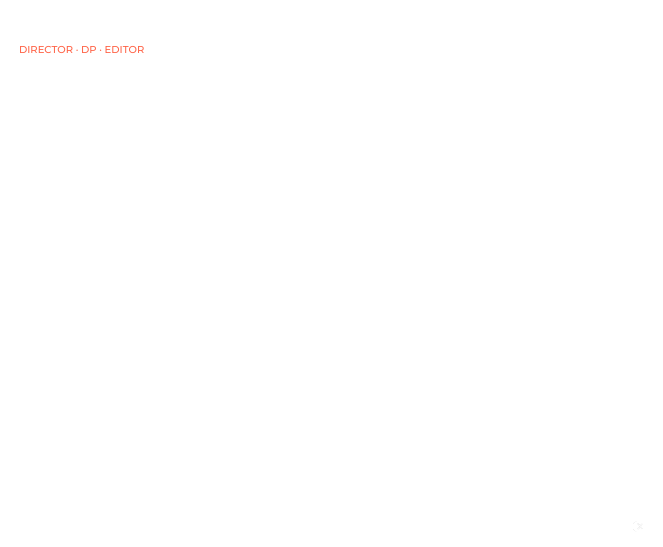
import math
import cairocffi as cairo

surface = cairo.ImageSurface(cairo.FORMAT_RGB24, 663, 547)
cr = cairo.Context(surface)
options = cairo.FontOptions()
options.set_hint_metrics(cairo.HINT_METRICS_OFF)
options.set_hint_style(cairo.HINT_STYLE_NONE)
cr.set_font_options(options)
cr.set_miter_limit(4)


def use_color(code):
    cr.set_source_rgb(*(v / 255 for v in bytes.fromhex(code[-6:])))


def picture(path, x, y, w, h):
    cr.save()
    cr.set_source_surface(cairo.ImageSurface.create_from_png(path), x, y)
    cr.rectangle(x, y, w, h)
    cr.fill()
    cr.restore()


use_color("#ffffff")
cr.paint()
cr.select_font_face("Montserrat Medium")
cr.set_font_size(10)
use_color("#ff6347")
cr.move_to(19, 53)
cr.show_text("DIRECTOR · DP · EDITOR")
picture("img1.png", 633, 521, 10, 11)
surface.write_to_png("result.png")
